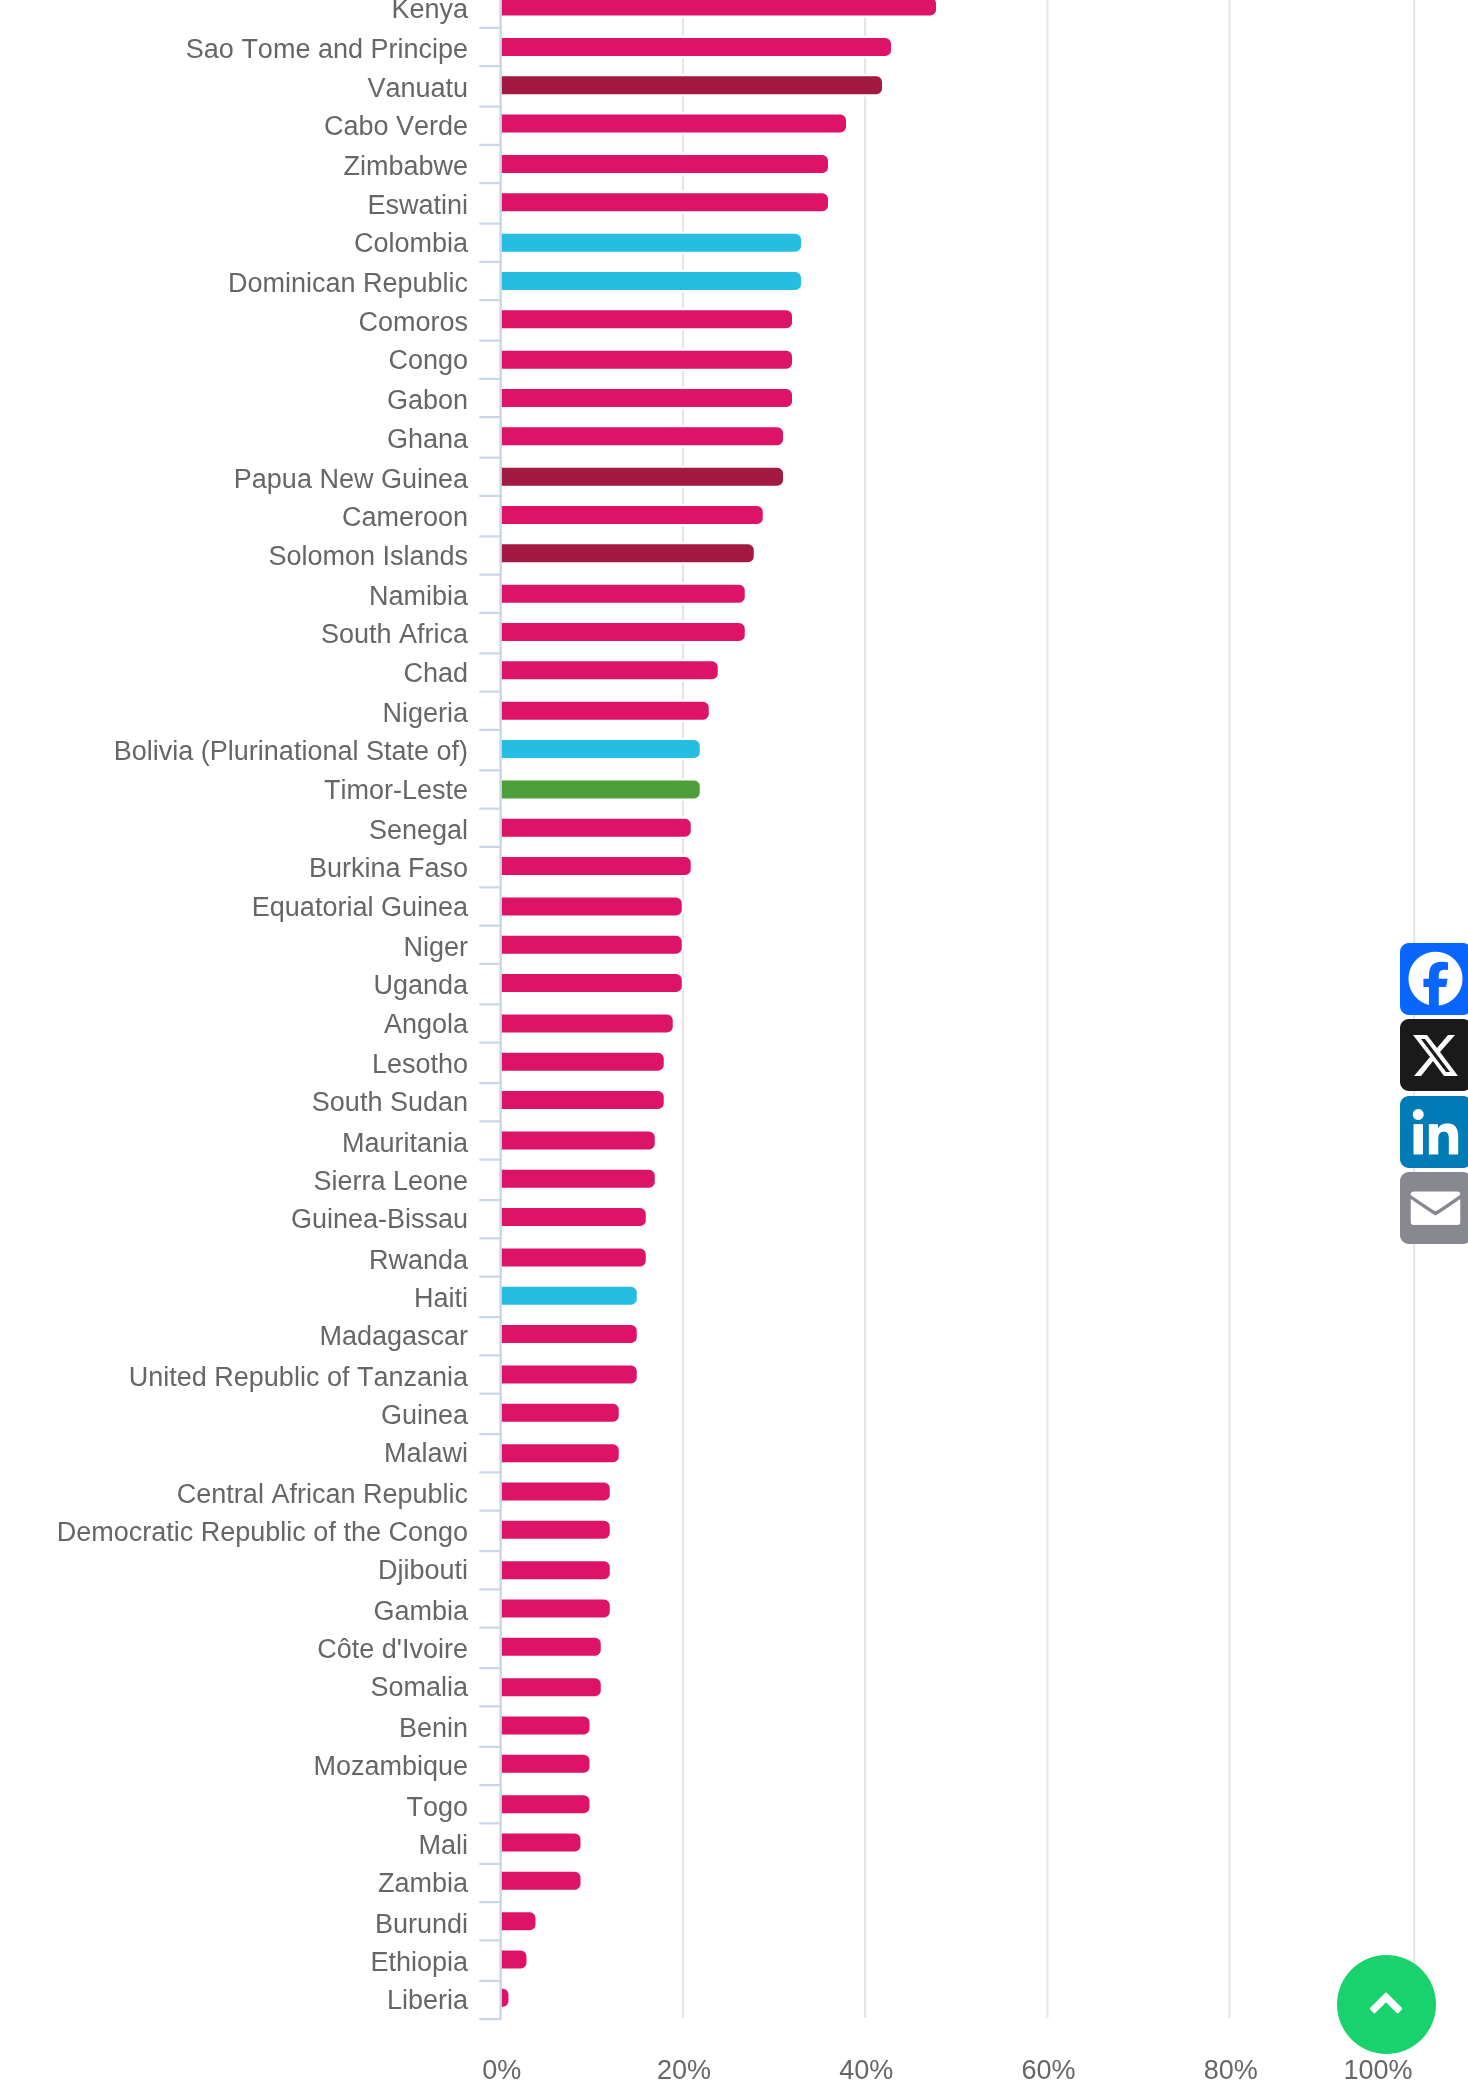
import math
import cairocffi as cairo

surface = cairo.ImageSurface(cairo.FORMAT_RGB24, 1468, 2086)
cr = cairo.Context(surface)
options = cairo.FontOptions()
options.set_hint_metrics(cairo.HINT_METRICS_OFF)
options.set_hint_style(cairo.HINT_STYLE_NONE)
cr.set_font_options(options)
cr.set_miter_limit(4)


def use_color(code):
    cr.set_source_rgb(*(v / 255 for v in bytes.fromhex(code[-6:])))


def round_rect(x, y, w, h, r):
    cr.new_sub_path()
    for i, (u, v) in enumerate([(x + w - r, y + h - r), (x + r, y + h - r), (x + r, y + r), (x + w - r, y + r)]):
        cr.arc(u, v, r, i * math.pi / 2, (i + 1) * math.pi / 2)
    cr.close_path()


def picture(path, x, y, w, h):
    cr.save()
    cr.set_source_surface(cairo.ImageSurface.create_from_png(path), x, y)
    cr.rectangle(x, y, w, h)
    cr.fill()
    cr.restore()


use_color("#ffffff")
cr.paint()
picture("img1.png", 58, 0, 1358, 2079)
use_color("#0866ff")
round_rect(1400, 943, 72, 72, 9)
cr.fill()
picture("img2.png", 1408, 951, 55, 55)
use_color("#1a1a1a")
round_rect(1400, 1019, 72, 72, 9)
cr.fill()
use_color("#ffffff")
cr.new_path()
cr.move_to(1448, 1035)
cr.line_to(1455, 1035)
cr.line_to(1440, 1052)
cr.line_to(1458, 1076)
cr.line_to(1444, 1076)
cr.line_to(1433, 1061)
cr.line_to(1421, 1076)
cr.line_to(1414, 1076)
cr.line_to(1430, 1057)
cr.line_to(1413, 1035)
cr.line_to(1427, 1035)
cr.line_to(1437, 1048)
cr.close_path()
cr.move_to(1446, 1072)
cr.line_to(1450, 1072)
cr.line_to(1425, 1039)
cr.line_to(1421, 1039)
cr.close_path()
cr.fill()
use_color("#007bb5")
round_rect(1400, 1096, 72, 72, 9)
cr.fill()
picture("img3.png", 1412, 1109, 47, 46)
use_color("#888990")
round_rect(1400, 1172, 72, 72, 9)
cr.fill()
picture("img4.png", 1410, 1191, 51, 34)
use_color("#18d26e")
cr.arc(1386.5, 2004.5, 49.5, 0, 2 * math.pi)
cr.fill()
picture("img5.png", 1369, 1992, 34, 22)
surface.write_to_png("result.png")
